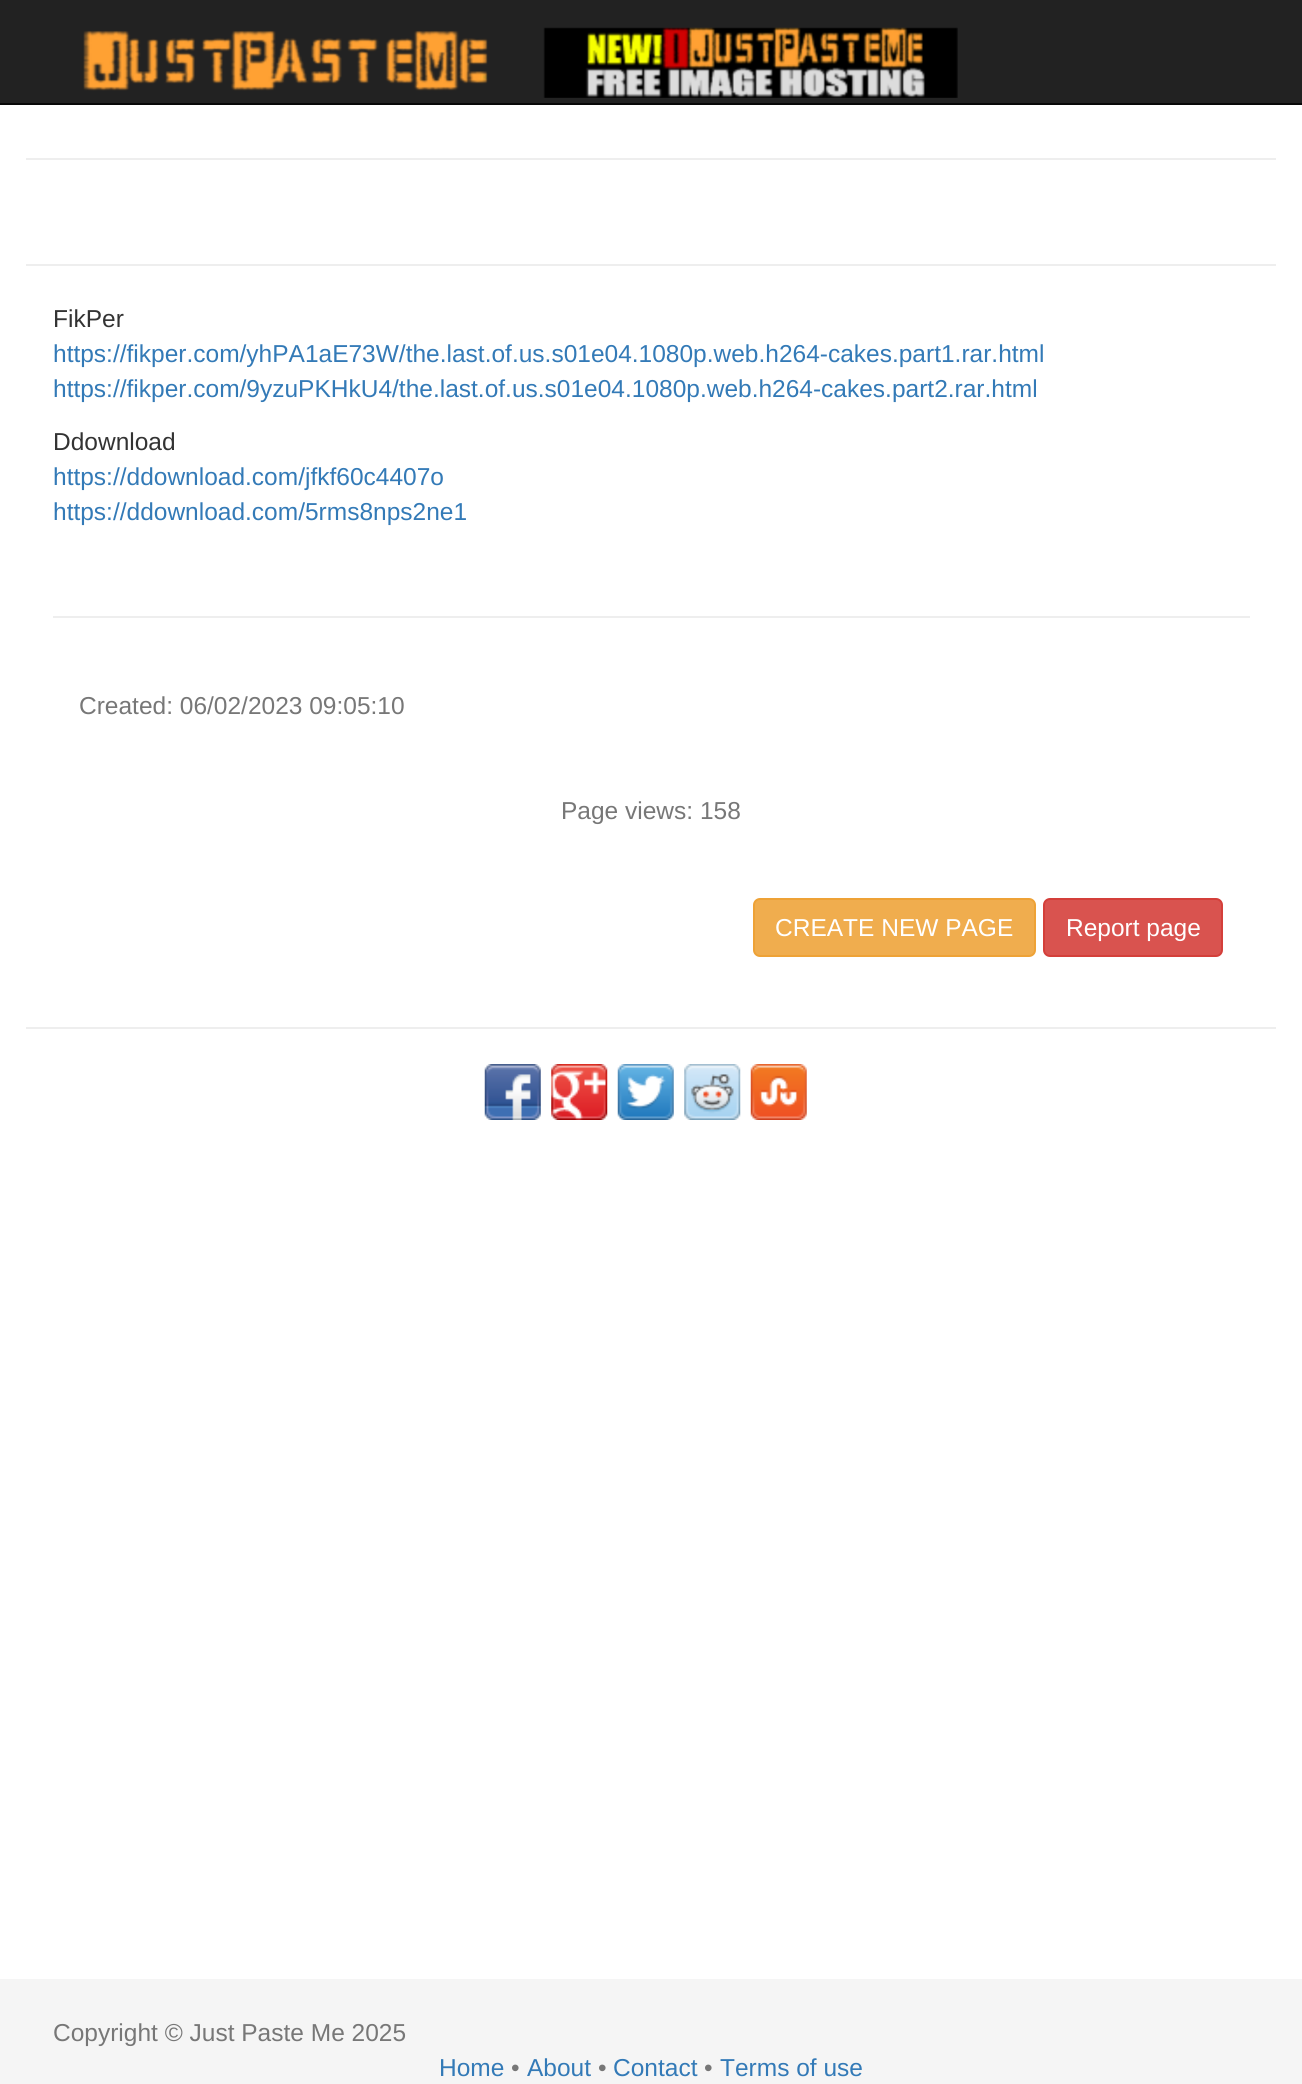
import math
import cairocffi as cairo

surface = cairo.ImageSurface(cairo.FORMAT_RGB24, 1302, 2084)
cr = cairo.Context(surface)
options = cairo.FontOptions()
options.set_hint_metrics(cairo.HINT_METRICS_OFF)
options.set_hint_style(cairo.HINT_STYLE_NONE)
cr.set_font_options(options)
cr.set_miter_limit(4)


def use_color(code):
    cr.set_source_rgb(*(v / 255 for v in bytes.fromhex(code[-6:])))


def round_rect(x, y, w, h, r):
    cr.new_sub_path()
    for i, (u, v) in enumerate([(x + w - r, y + h - r), (x + r, y + h - r), (x + r, y + r), (x + w - r, y + r)]):
        cr.arc(u, v, r, i * math.pi / 2, (i + 1) * math.pi / 2)
    cr.close_path()


def picture(path, x, y, w, h):
    cr.save()
    cr.set_source_surface(cairo.ImageSurface.create_from_png(path), x, y)
    cr.rectangle(x, y, w, h)
    cr.fill()
    cr.restore()


use_color("#ffffff")
cr.paint()
use_color("#222222")
cr.rectangle(0, 0, 1302, 103)
cr.fill()
use_color("#080808")
cr.rectangle(0, 103, 1302, 2)
cr.fill()
picture("img1.png", 83, 30, 405, 61)
picture("img2.png", 543, 27, 415, 71)
use_color("#eeeeee")
cr.rectangle(26, 158, 1250, 2)
cr.fill()
cr.rectangle(26, 264, 1250, 2)
cr.fill()
cr.select_font_face("Liberation Sans")
cr.set_font_size(24.5)
use_color("#333333")
cr.move_to(53, 327)
cr.show_text("FikPer")
use_color("#337ab7")
cr.move_to(53, 362)
cr.show_text("https://fikper.com/yhPA1aE73W/the.last.of.us.s01e04.1080p.web.h264-cakes.part1.rar.html")
cr.move_to(53, 397)
cr.show_text("https://fikper.com/9yzuPKHkU4/the.last.of.us.s01e04.1080p.web.h264-cakes.part2.rar.html")
use_color("#333333")
cr.move_to(53, 450)
cr.show_text("Ddownload")
use_color("#337ab7")
cr.move_to(53, 485)
cr.show_text("https://ddownload.com/jfkf60c4407o")
cr.move_to(53, 520)
cr.show_text("https://ddownload.com/5rms8nps2ne1")
use_color("#eeeeee")
cr.rectangle(53, 616, 1197, 2)
cr.fill()
use_color("#777777")
cr.move_to(79, 714)
cr.show_text("Created: 06/02/2023 09:05:10")
cr.move_to(561, 819)
cr.show_text("Page views: 158")
use_color("#f0ad4e")
round_rect(754, 899, 281, 57, 6)
cr.fill_preserve()
use_color("#eea236")
cr.stroke()
use_color("#ffffff")
cr.move_to(775, 936)
cr.show_text("CREATE NEW PAGE")
use_color("#d9534f")
round_rect(1044, 899, 178, 57, 6)
cr.fill_preserve()
use_color("#d43f3a")
cr.stroke()
use_color("#ffffff")
cr.move_to(1066, 936)
cr.show_text("Report page")
use_color("#eeeeee")
cr.rectangle(26, 1027, 1250, 2)
cr.fill()
picture("img3.png", 484, 1064, 57, 56)
picture("img4.png", 551, 1064, 57, 56)
picture("img5.png", 617, 1064, 57, 56)
picture("img6.png", 684, 1064, 57, 56)
picture("img7.png", 750, 1064, 57, 56)
use_color("#f5f5f5")
cr.rectangle(0, 1979, 1302, 105)
cr.fill()
use_color("#777777")
cr.move_to(53, 2041)
cr.show_text("Copyright © Just Paste Me 2025")
use_color("#337ab7")
cr.move_to(439, 2076)
cr.show_text("Home")
use_color("#777777")
cr.move_to(511, 2076)
cr.show_text("•")
use_color("#337ab7")
cr.move_to(527, 2076)
cr.show_text("About")
use_color("#777777")
cr.move_to(598, 2076)
cr.show_text("•")
use_color("#337ab7")
cr.move_to(613, 2076)
cr.show_text("Contact")
use_color("#777777")
cr.move_to(704, 2076)
cr.show_text("•")
use_color("#337ab7")
cr.move_to(720, 2076)
cr.show_text("Terms of use")
surface.write_to_png("result.png")
